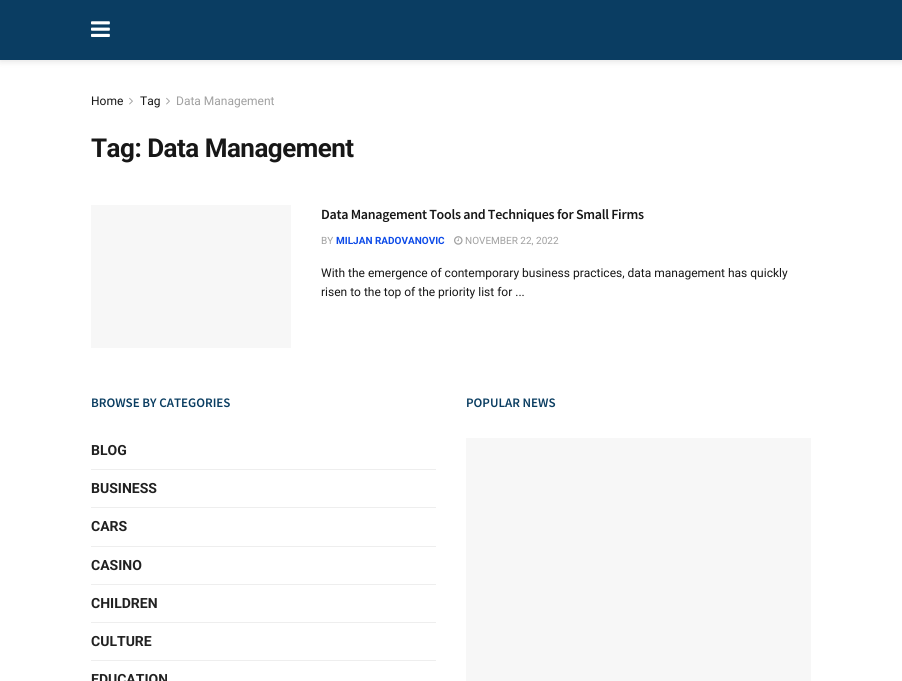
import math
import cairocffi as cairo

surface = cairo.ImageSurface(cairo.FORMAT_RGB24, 902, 681)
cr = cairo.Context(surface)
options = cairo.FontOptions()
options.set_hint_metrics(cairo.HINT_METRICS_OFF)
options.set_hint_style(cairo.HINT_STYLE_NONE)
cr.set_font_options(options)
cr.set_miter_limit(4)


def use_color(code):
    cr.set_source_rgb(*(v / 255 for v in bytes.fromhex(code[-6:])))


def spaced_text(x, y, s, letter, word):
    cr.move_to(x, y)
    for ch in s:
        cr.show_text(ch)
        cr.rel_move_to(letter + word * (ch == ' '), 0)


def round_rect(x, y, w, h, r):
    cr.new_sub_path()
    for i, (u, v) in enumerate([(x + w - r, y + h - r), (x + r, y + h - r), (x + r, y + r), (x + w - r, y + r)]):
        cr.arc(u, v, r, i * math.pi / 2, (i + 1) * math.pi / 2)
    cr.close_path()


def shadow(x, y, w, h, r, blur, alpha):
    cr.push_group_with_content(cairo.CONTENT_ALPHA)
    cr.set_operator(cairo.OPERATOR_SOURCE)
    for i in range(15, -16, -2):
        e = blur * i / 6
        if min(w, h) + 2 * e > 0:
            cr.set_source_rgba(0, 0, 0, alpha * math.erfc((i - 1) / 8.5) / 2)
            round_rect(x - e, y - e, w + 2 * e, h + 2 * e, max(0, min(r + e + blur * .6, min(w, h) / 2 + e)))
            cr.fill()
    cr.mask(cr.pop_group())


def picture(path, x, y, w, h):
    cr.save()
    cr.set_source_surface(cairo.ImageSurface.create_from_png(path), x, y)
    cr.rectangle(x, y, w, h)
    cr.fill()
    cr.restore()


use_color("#ffffff")
cr.paint()
use_color("#000000")
shadow(0, 2, 902, 60, 0, 3, 0.1)
use_color("#0a3d62")
cr.rectangle(0, 0, 902, 60)
cr.fill()
picture("img1.png", 91, 21, 19, 16)
cr.select_font_face("Roboto")
cr.set_font_size(12)
use_color("#171717")
cr.move_to(91, 105)
cr.show_text("Home")
picture("img2.png", 129, 97, 4, 8)
cr.move_to(140, 105)
cr.show_text("Tag")
picture("img2.png", 166, 97, 4, 8)
use_color("#a0a0a0")
cr.move_to(176, 105)
cr.show_text("Data Management")
cr.select_font_face("Roboto", cairo.FONT_SLANT_NORMAL, cairo.FONT_WEIGHT_BOLD)
cr.set_font_size(26)
use_color("#171717")
spaced_text(91, 157, "Tag: Data Management", -0.5, 0)
use_color("#f7f7f7")
cr.rectangle(91, 205, 200, 143)
cr.fill()
cr.select_font_face("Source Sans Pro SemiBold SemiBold")
cr.set_font_size(14)
use_color("#171717")
spaced_text(321, 219, "Data Management Tools and Techniques for Small Firms", -0.28, 0)
cr.select_font_face("Roboto")
cr.set_font_size(10)
use_color("#a0a0a0")
cr.move_to(321, 244)
cr.show_text("BY")
cr.select_font_face("Roboto", cairo.FONT_SLANT_NORMAL, cairo.FONT_WEIGHT_BOLD)
use_color("#0d4be8")
cr.move_to(336, 244)
cr.show_text("MILJAN RADOVANOVIC")
picture("img3.png", 454, 236, 9, 9)
cr.select_font_face("Roboto")
use_color("#a0a0a0")
cr.move_to(465, 244)
cr.show_text("NOVEMBER 22, 2022")
cr.set_font_size(12)
use_color("#171717")
cr.move_to(321, 277)
cr.show_text("With the emergence of contemporary business practices, data management has quickly")
cr.move_to(321, 296)
cr.show_text("risen to the top of the priority list for ...")
cr.select_font_face("Source Sans Pro SemiBold SemiBold")
cr.set_font_size(13)
use_color("#0a3d61")
cr.move_to(91, 407)
cr.show_text("BROWSE BY CATEGORIES")
cr.select_font_face("Roboto", cairo.FONT_SLANT_NORMAL, cairo.FONT_WEIGHT_BOLD)
cr.set_font_size(14)
use_color("#212121")
cr.move_to(91, 455)
cr.show_text("BLOG")
use_color("#eeeeee")
cr.rectangle(91, 469, 345, 1)
cr.fill()
use_color("#212121")
cr.move_to(91, 493)
cr.show_text("BUSINESS")
use_color("#eeeeee")
cr.rectangle(91, 507, 345, 1)
cr.fill()
use_color("#212121")
cr.move_to(91, 531)
cr.show_text("CARS")
use_color("#eeeeee")
cr.rectangle(91, 546, 345, 1)
cr.fill()
use_color("#212121")
cr.move_to(91, 570)
cr.show_text("CASINO")
use_color("#eeeeee")
cr.rectangle(91, 584, 345, 1)
cr.fill()
use_color("#212121")
cr.move_to(91, 608)
cr.show_text("CHILDREN")
use_color("#eeeeee")
cr.rectangle(91, 622, 345, 1)
cr.fill()
use_color("#212121")
cr.move_to(91, 646)
cr.show_text("CULTURE")
use_color("#eeeeee")
cr.rectangle(91, 660, 345, 1)
cr.fill()
use_color("#212121")
cr.move_to(91, 684)
cr.show_text("EDUCATION")
cr.select_font_face("Source Sans Pro SemiBold SemiBold")
cr.set_font_size(13)
use_color("#0a3d61")
cr.move_to(466, 407)
cr.show_text("POPULAR NEWS")
use_color("#f7f7f7")
cr.rectangle(466, 438, 345, 243)
cr.fill()
surface.write_to_png("result.png")
